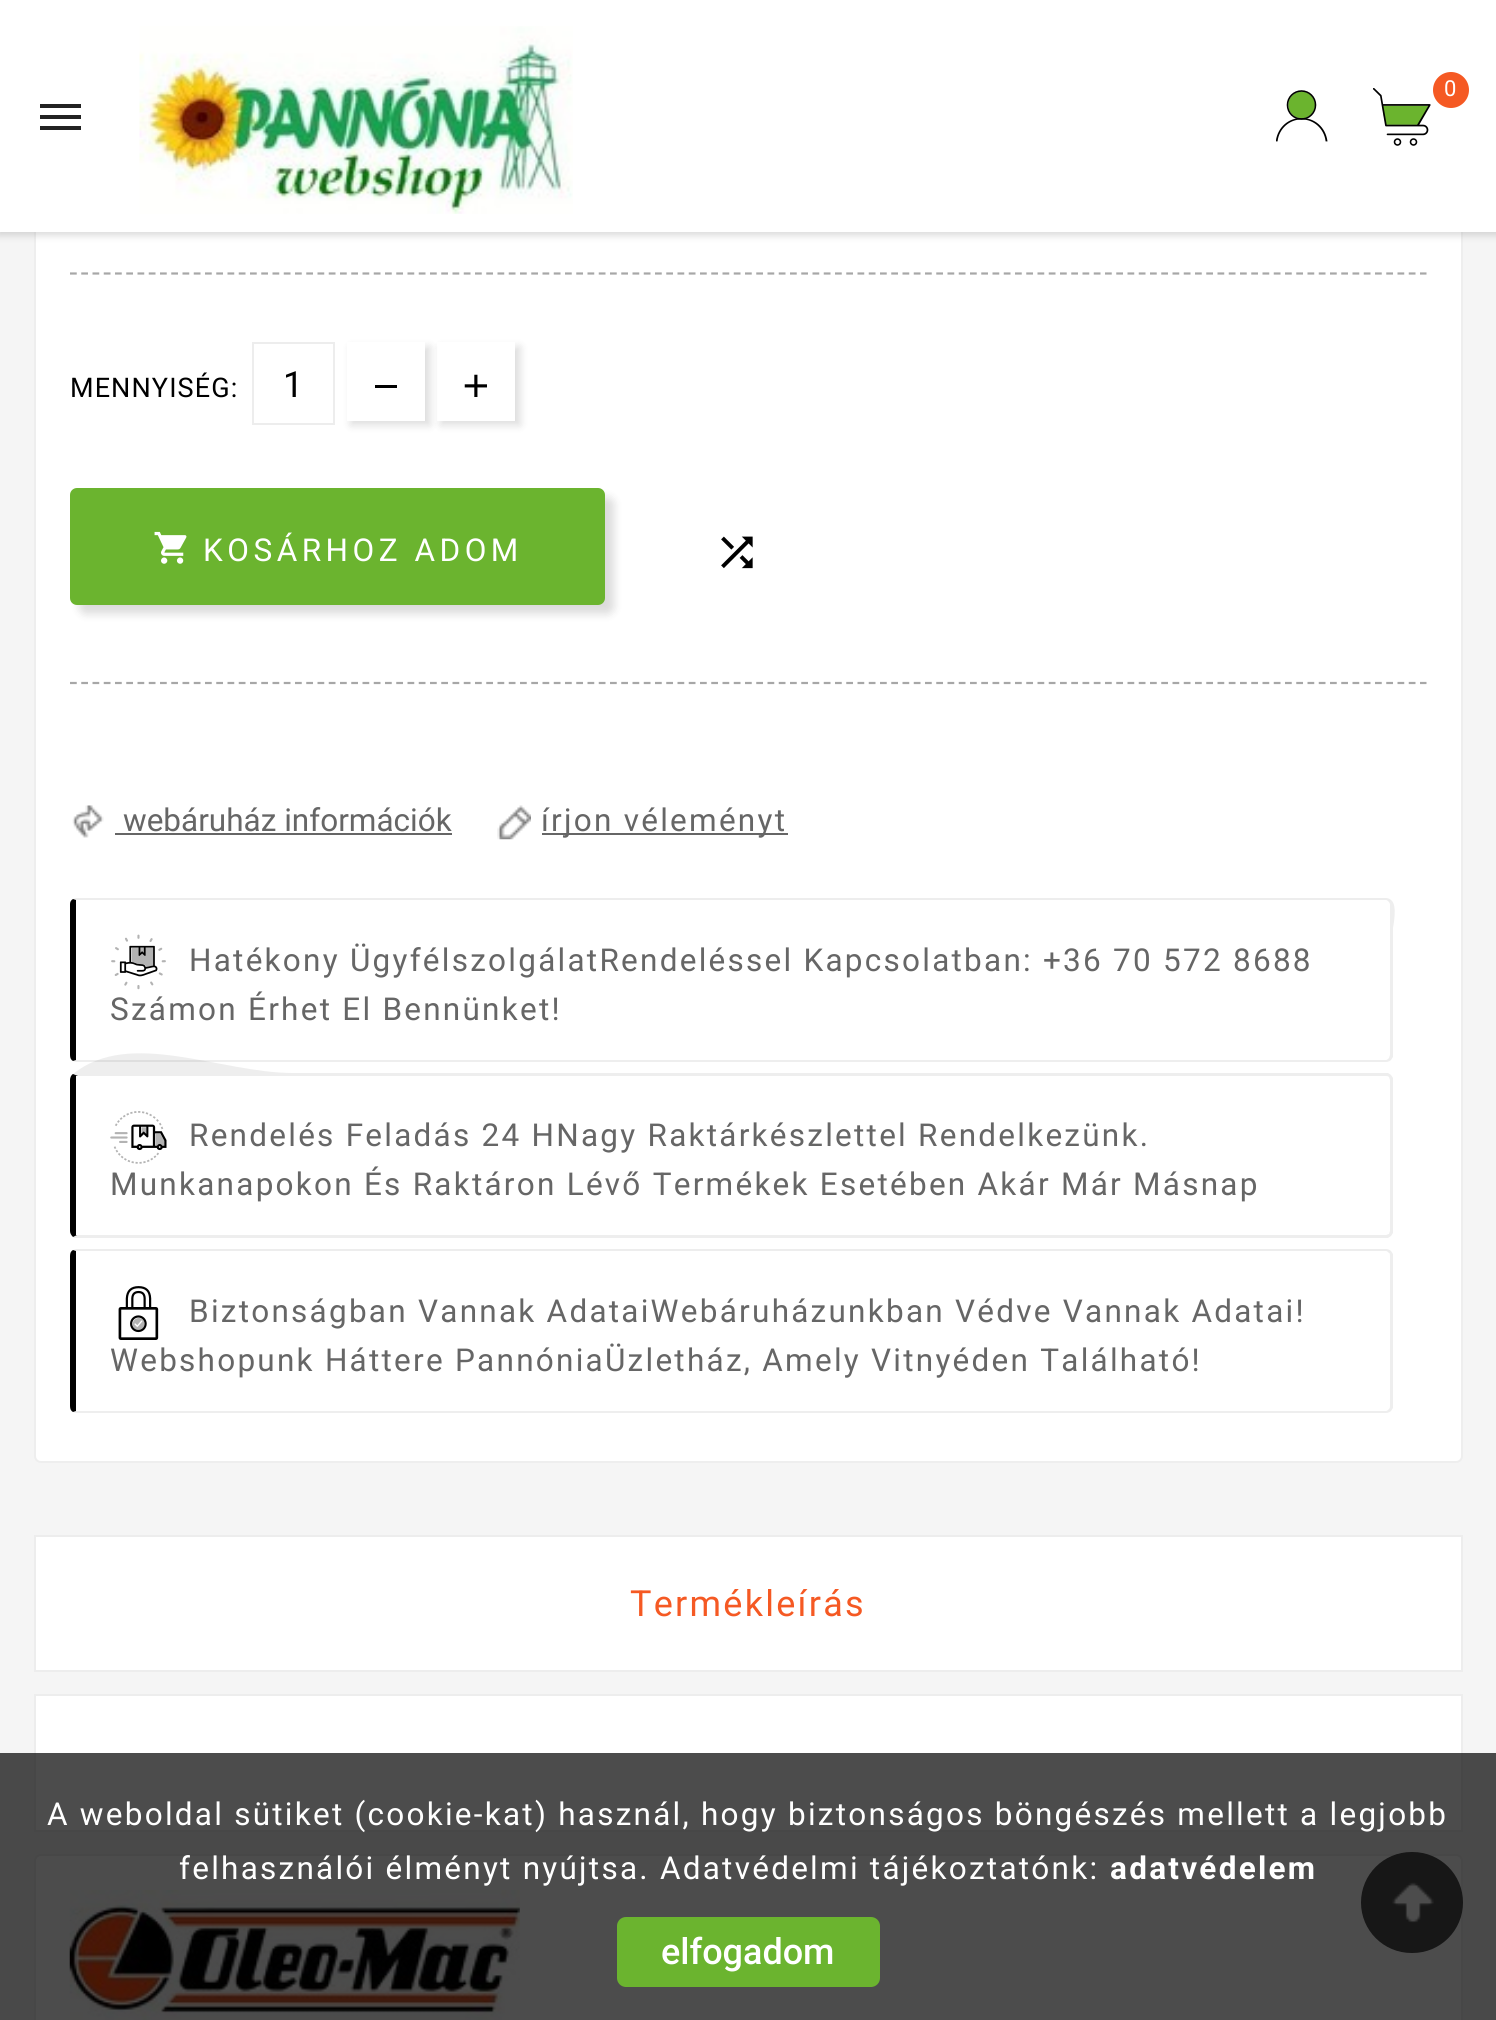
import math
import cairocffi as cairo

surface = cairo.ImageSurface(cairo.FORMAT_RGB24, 1496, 2020)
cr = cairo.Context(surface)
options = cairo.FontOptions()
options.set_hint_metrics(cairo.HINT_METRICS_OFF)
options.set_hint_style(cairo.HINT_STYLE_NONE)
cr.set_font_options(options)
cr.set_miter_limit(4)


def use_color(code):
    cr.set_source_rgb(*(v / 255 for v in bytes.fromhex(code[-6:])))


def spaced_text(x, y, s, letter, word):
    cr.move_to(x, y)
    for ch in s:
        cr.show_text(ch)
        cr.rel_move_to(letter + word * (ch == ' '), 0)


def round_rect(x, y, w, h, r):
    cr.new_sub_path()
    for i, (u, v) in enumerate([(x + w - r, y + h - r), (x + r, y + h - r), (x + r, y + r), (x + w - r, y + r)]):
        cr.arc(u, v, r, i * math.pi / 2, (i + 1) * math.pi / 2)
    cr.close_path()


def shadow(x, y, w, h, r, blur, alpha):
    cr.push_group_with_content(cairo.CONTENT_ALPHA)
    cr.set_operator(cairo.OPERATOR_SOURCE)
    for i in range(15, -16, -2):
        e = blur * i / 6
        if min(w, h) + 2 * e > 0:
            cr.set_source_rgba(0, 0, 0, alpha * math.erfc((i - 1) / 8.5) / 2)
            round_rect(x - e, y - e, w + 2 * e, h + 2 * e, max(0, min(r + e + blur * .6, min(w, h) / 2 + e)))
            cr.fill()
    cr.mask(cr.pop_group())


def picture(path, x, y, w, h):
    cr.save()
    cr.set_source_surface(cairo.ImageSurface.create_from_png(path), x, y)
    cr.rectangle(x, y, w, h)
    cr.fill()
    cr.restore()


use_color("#f5f5f5")
cr.paint()
use_color("#ffffff")
round_rect(34, -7, 1429, 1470, 7)
cr.fill()
round_rect(35, -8, 1427, 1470, 6)
cr.set_source_rgba(0, 0, 0, 0.07)
cr.stroke()
use_color("#808080")
shadow(-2, 0, 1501, 236, 0, 3.5, 0.27)
use_color("#ffffff")
cr.rectangle(0, 0, 1496, 232)
cr.fill()
picture("img1.png", 139, 26, 434, 188)
picture("img2.png", 1373, 88, 58, 58)
use_color("#f55923")
cr.arc(1451, 90, 18, 0, 2 * math.pi)
cr.fill()
cr.select_font_face("Roboto")
cr.set_font_size(22)
use_color("#ffffff")
spaced_text(1444, 96, "0", 2.25, 0)
picture("img3.png", 1276, 90, 52, 52)
use_color("#222222")
cr.new_path()
cr.move_to(40, 104)
cr.line_to(81, 104)
cr.line_to(81, 108)
cr.line_to(40, 108)
cr.close_path()
cr.move_to(40, 119)
cr.line_to(40, 115)
cr.line_to(81, 115)
cr.line_to(81, 119)
cr.close_path()
cr.move_to(40, 130)
cr.line_to(40, 126)
cr.line_to(81, 126)
cr.line_to(81, 130)
cr.close_path()
cr.fill()
cr.new_path()
cr.move_to(70, 273.5)
cr.line_to(1426.5, 273.5)
use_color("#a7a7a7")
cr.set_line_width(2.2)
cr.set_dash([6.75, 4.5])
cr.stroke()
cr.set_font_size(27)
use_color("#000000")
spaced_text(70, 397, "MENNYISÉG:", 1.1, 0)
cr.rectangle(253, 343, 81, 81)
use_color("#ededed")
cr.set_line_width(2)
cr.set_dash([])
cr.stroke()
cr.set_font_size(36)
use_color("#000000")
cr.move_to(283, 397)
cr.show_text("1")
use_color("#000000")
shadow(441, 347, 79, 78, 0, 4.5, 0.14)
use_color("#ffffff")
cr.rectangle(437, 342, 78, 79)
cr.fill()
use_color("#000000")
shadow(351, 347, 79, 78, 0, 4.5, 0.14)
use_color("#ffffff")
cr.rectangle(347, 342, 78, 79)
cr.fill()
use_color("#000000")
cr.rectangle(375, 385, 22, 3)
cr.fill()
picture("img4.png", 464, 374, 23, 23)
use_color("#000000")
shadow(79, 497, 535, 117, 7, 4.5, 0.14)
use_color("#6bb42f")
round_rect(70, 488, 535, 117, 7)
cr.fill()
picture("img5.png", 154, 531, 33, 33)
cr.set_font_size(31.5)
use_color("#ffffff")
spaced_text(203, 561, "KOSÁRHOZ ADOM", 4.5, 0)
cr.new_path()
cr.move_to(70, 683)
cr.line_to(1426.5, 683)
use_color("#a7a7a7")
cr.set_line_width(2.2)
cr.set_dash([6.75, 4.5])
cr.stroke()
picture("img6.png", 721, 536, 32, 33)
picture("img7.png", 72, 805, 32, 33)
use_color("#666666")
cr.move_to(123, 831)
cr.show_text("webáruház információk")
cr.rectangle(115, 833, 337, 2)
cr.fill()
picture("img8.png", 497, 805, 34, 35)
cr.rectangle(542, 833, 246, 2)
cr.fill()
spaced_text(541, 831, "írjon véleményt", 2.25, 0)
use_color("#ededed")
cr.new_path()
cr.move_to(76, 898)
cr.line_to(73, 899)
cr.line_to(76, 900)
cr.line_to(1386, 900)
cr.curve_to(1387, 900, 1388, 901, 1389, 902)
cr.line_to(1391, 900)
cr.curve_to(1390, 899, 1388, 898, 1386, 898)
cr.close_path()
cr.fill()
cr.set_source_rgba(0, 0, 0, 0.07)
cr.new_path()
cr.move_to(1391, 900)
cr.curve_to(1398, 905, 1393, 927, 1393, 928)
cr.line_to(1393, 1057)
cr.line_to(1391, 1060)
cr.line_to(1389, 1058)
cr.line_to(1390, 1055)
cr.line_to(1390, 954)
cr.line_to(1390, 904)
cr.line_to(1389, 902)
cr.close_path()
cr.fill()
cr.new_path()
cr.move_to(76, 1062)
cr.line_to(1386, 1062)
cr.curve_to(1388, 1062, 1390, 1061, 1391, 1060)
cr.line_to(1389, 1058)
cr.curve_to(1388, 1059, 1387, 1060, 1386, 1060)
cr.line_to(76, 1060)
cr.line_to(73, 1061)
cr.close_path()
cr.fill()
use_color("#000000")
cr.new_path()
cr.move_to(76, 900)
cr.line_to(73, 899)
cr.curve_to(71, 900, 70, 902, 70, 904)
cr.line_to(70, 1055)
cr.curve_to(70, 1058, 71, 1060, 73, 1061)
cr.line_to(76, 1060)
cr.close_path()
cr.fill()
picture("img9.png", 111, 934, 55, 56)
use_color("#666666")
spaced_text(189, 971, "Hatékony ÜgyfélszolgálatRendeléssel Kapcsolatban: +36 70 572 8688", 2.25, 0)
spaced_text(110, 1020, "Számon Érhet El Bennünket!", 2.25, 0)
cr.set_source_rgba(0, 0, 0, 0.07)
cr.new_path()
cr.move_to(73, 1074)
cr.curve_to(130, 1028, 220, 1073, 293, 1073)
cr.line_to(1388, 1073)
cr.line_to(1391, 1075)
cr.line_to(1389, 1077)
cr.curve_to(1388, 1076, 1387, 1076, 1386, 1076)
cr.line_to(78, 1076)
cr.close_path()
cr.fill()
cr.new_path()
cr.move_to(1393, 1233)
cr.line_to(1391, 1236)
cr.line_to(1389, 1234)
cr.line_to(1390, 1231)
cr.line_to(1390, 1080)
cr.line_to(1389, 1077)
cr.line_to(1391, 1075)
cr.line_to(1393, 1078)
cr.close_path()
cr.fill()
cr.new_path()
cr.move_to(74, 1238)
cr.line_to(73, 1237)
cr.line_to(77, 1235)
cr.line_to(1386, 1235)
cr.curve_to(1387, 1235, 1388, 1234, 1389, 1234)
cr.line_to(1391, 1236)
cr.line_to(1388, 1238)
cr.close_path()
cr.fill()
use_color("#000000")
cr.new_path()
cr.move_to(76, 1076)
cr.line_to(76, 1235)
cr.line_to(77, 1235)
cr.line_to(73, 1237)
cr.curve_to(71, 1235, 70, 1233, 70, 1231)
cr.line_to(70, 1080)
cr.curve_to(70, 1078, 71, 1075, 73, 1074)
cr.line_to(78, 1076)
cr.close_path()
cr.fill()
picture("img10.png", 110, 1111, 57, 53)
use_color("#666666")
spaced_text(189, 1146, "Rendelés Feladás 24 HNagy Raktárkészlettel Rendelkezünk.", 2.25, 0)
spaced_text(110, 1195, "Munkanapokon És Raktáron Lévő Termékek Esetében Akár Már Másnap", 2.25, 0)
use_color("#ededed")
cr.new_path()
cr.move_to(76, 1249)
cr.line_to(73, 1250)
cr.line_to(76, 1251)
cr.line_to(1386, 1251)
cr.curve_to(1387, 1251, 1388, 1252, 1389, 1253)
cr.line_to(1391, 1251)
cr.curve_to(1390, 1250, 1388, 1249, 1386, 1249)
cr.close_path()
cr.fill()
cr.set_source_rgba(0, 0, 0, 0.07)
cr.new_path()
cr.move_to(1391, 1251)
cr.line_to(1393, 1254)
cr.line_to(1393, 1408)
cr.line_to(1391, 1411)
cr.line_to(1389, 1409)
cr.curve_to(1390, 1408, 1390, 1407, 1390, 1406)
cr.line_to(1390, 1256)
cr.curve_to(1390, 1255, 1390, 1253, 1389, 1253)
cr.close_path()
cr.fill()
cr.new_path()
cr.move_to(76, 1413)
cr.line_to(1386, 1413)
cr.curve_to(1388, 1413, 1390, 1412, 1391, 1411)
cr.line_to(1389, 1409)
cr.curve_to(1388, 1410, 1387, 1411, 1386, 1411)
cr.line_to(76, 1411)
cr.line_to(73, 1412)
cr.close_path()
cr.fill()
use_color("#000000")
cr.new_path()
cr.move_to(76, 1251)
cr.line_to(73, 1250)
cr.curve_to(71, 1251, 70, 1253, 70, 1256)
cr.line_to(70, 1406)
cr.curve_to(70, 1409, 71, 1411, 73, 1412)
cr.line_to(76, 1411)
cr.close_path()
cr.fill()
picture("img11.png", 118, 1286, 41, 54)
use_color("#666666")
spaced_text(189, 1322, "Biztonságban Vannak AdataiWebáruházunkban Védve Vannak Adatai!", 2.25, 0)
spaced_text(110, 1371, "Webshopunk Háttere PannóniaÜzletház, Amely Vitnyéden Található!", 2.25, 0)
use_color("#ffffff")
cr.rectangle(35, 1536, 1427, 135)
cr.fill_preserve()
use_color("#ededed")
cr.set_line_width(2)
cr.set_dash([])
cr.stroke()
cr.set_font_size(36)
use_color("#f55923")
spaced_text(630, 1616, "Termékleírás", 2.25, 0)
use_color("#ffffff")
cr.rectangle(35, 1695, 1427, 136)
cr.fill_preserve()
use_color("#ededed")
cr.stroke()
use_color("#ffffff")
round_rect(34, 1854, 1429, 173, 7)
cr.fill()
round_rect(35, 1855, 1427, 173, 6)
cr.set_source_rgba(0, 0, 0, 0.07)
cr.stroke()
picture("img12.png", 69, 1890, 451, 130)
use_color("#4c4c4c")
round_rect(1361, 1852, 102, 101, 50.5)
cr.fill()
picture("img13.png", 1392, 1882, 42, 41)
cr.set_source_rgba(0, 0, 0, 0.7)
cr.rectangle(0, 1753, 1496, 267)
cr.fill()
cr.set_font_size(31.5)
use_color("#ffffff")
spaced_text(47, 1825, "A weboldal sütiket (cookie-kat) használ, hogy biztonságos böngészés mellett a legjobb", 2.25, 0)
spaced_text(179, 1879, "felhasználói élményt nyújtsa. Adatvédelmi tájékoztatónk:", 2.25, 0)
cr.select_font_face("Roboto", cairo.FONT_SLANT_NORMAL, cairo.FONT_WEIGHT_BOLD)
spaced_text(1110, 1879, "adatvédelem", 2.25, 0)
use_color("#6bb42f")
round_rect(617, 1917, 263, 70, 9)
cr.fill()
cr.select_font_face("Roboto Medium")
cr.set_font_size(36)
use_color("#ffffff")
cr.move_to(661, 1964)
cr.show_text("elfogadom")
surface.write_to_png("result.png")
